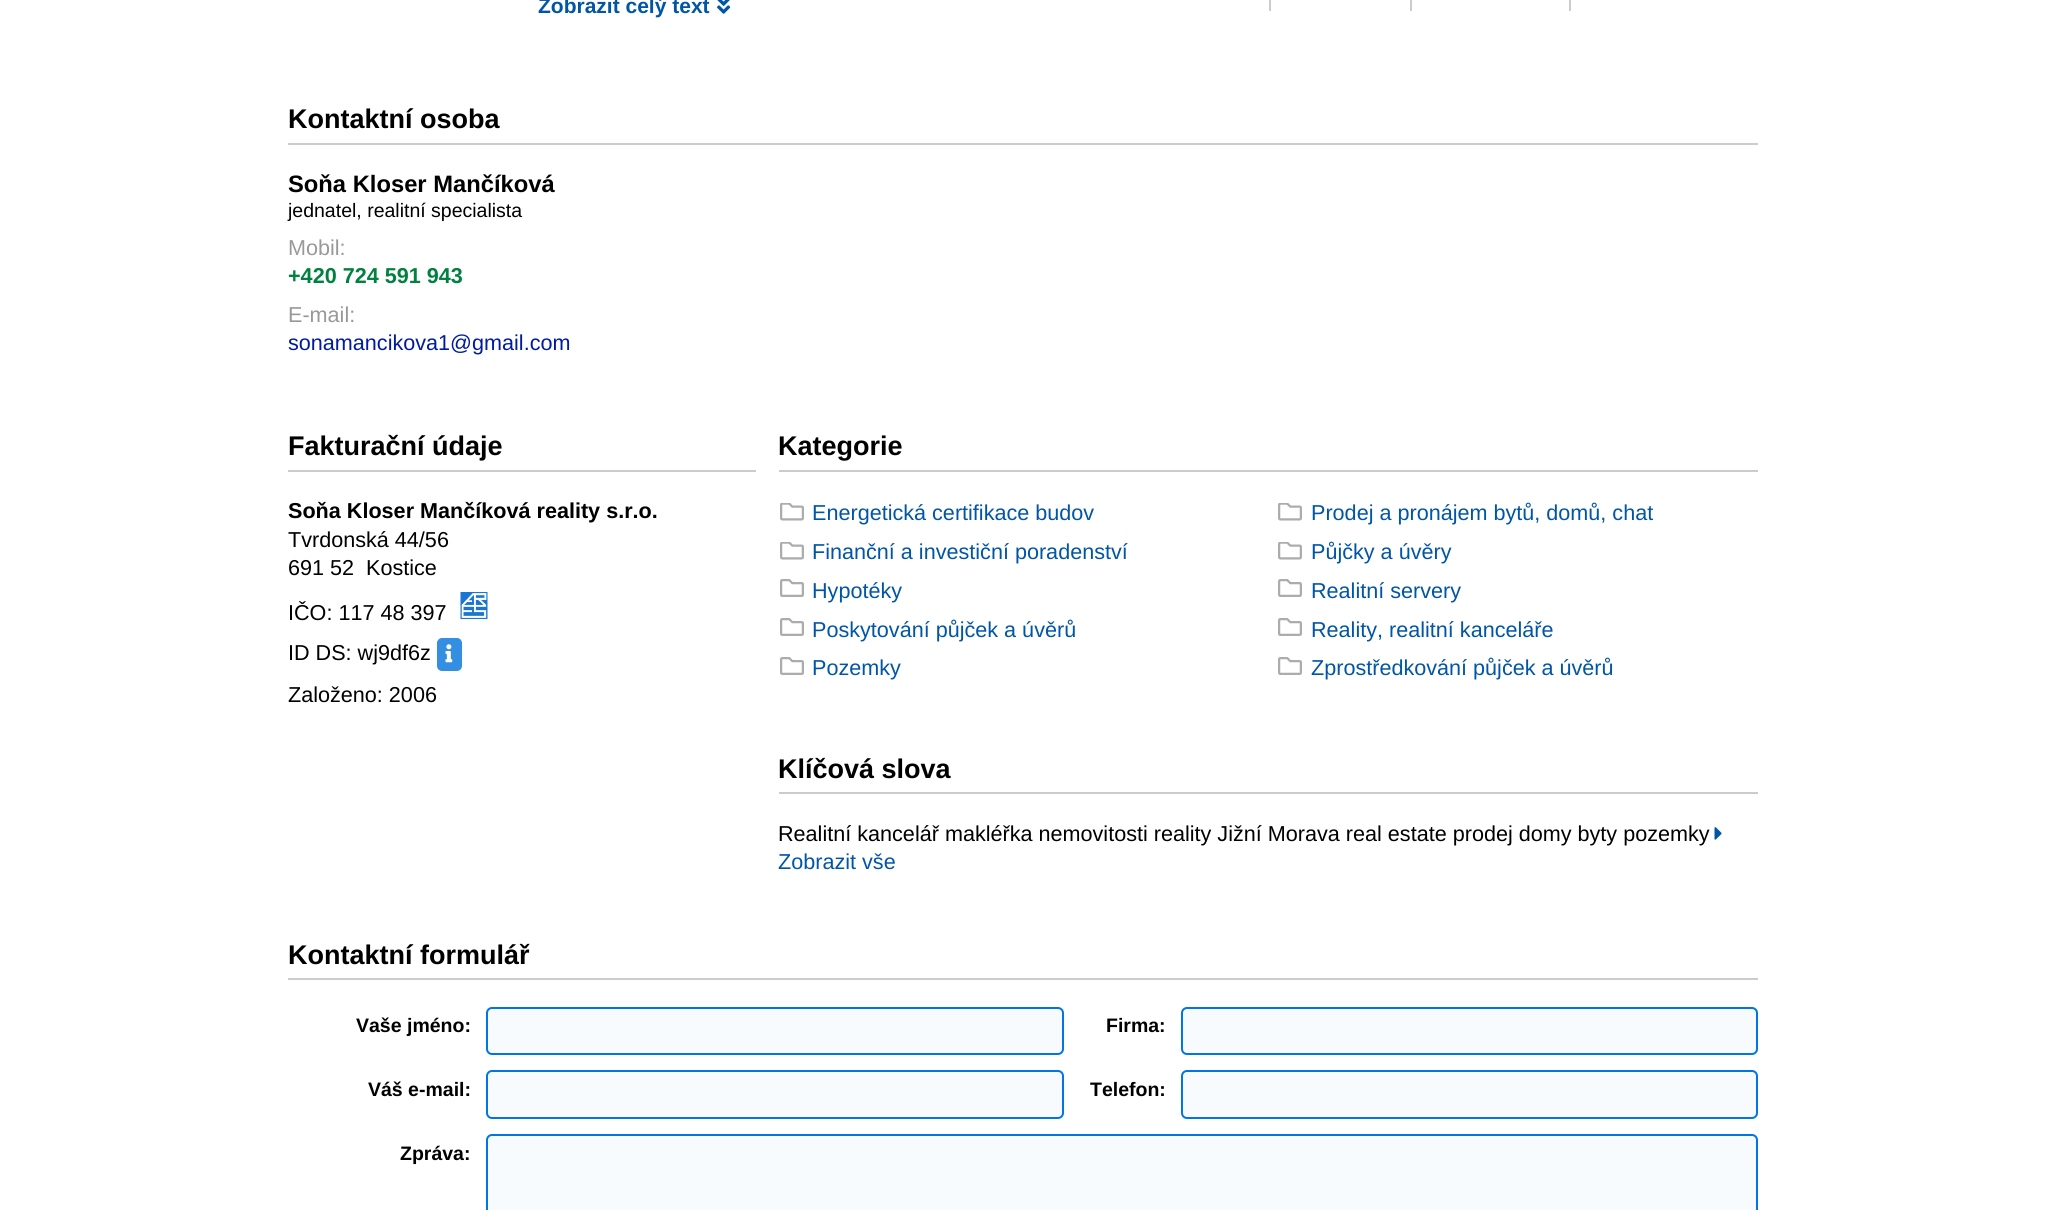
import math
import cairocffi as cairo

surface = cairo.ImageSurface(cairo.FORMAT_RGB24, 2045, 1210)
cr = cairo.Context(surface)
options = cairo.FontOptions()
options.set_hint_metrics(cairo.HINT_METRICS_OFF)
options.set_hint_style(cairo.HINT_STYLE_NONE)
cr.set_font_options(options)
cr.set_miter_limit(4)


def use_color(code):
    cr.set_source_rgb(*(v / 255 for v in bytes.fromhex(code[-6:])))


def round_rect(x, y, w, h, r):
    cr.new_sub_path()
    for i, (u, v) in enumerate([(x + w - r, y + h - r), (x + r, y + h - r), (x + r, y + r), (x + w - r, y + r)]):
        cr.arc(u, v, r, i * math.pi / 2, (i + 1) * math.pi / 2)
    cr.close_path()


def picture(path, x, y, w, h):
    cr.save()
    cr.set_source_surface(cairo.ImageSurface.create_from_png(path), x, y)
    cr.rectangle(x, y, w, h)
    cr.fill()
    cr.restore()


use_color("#ffffff")
cr.paint()
cr.select_font_face("Liberation Sans", cairo.FONT_SLANT_NORMAL, cairo.FONT_WEIGHT_BOLD)
cr.set_font_size(21)
use_color("#0055a5")
cr.move_to(538, 13)
cr.show_text("Zobrazit celý text")
picture("img1.png", 717, 0, 14, 14)
use_color("#cccccc")
cr.rectangle(1269, 0, 2, 11)
cr.fill()
cr.rectangle(1410, 0, 2, 11)
cr.fill()
cr.rectangle(1569, 0, 2, 11)
cr.fill()
cr.rectangle(288, 143, 1470, 2)
cr.fill()
cr.set_font_size(27)
use_color("#000000")
cr.move_to(288, 128)
cr.show_text("Kontaktní osoba")
cr.set_font_size(23.75)
cr.move_to(288, 192)
cr.show_text("Soňa Kloser Mančíková")
cr.select_font_face("Liberation Sans")
cr.set_font_size(19.5)
cr.move_to(288, 217)
cr.show_text("jednatel, realitní specialista")
cr.set_font_size(21.6)
use_color("#999999")
cr.move_to(288, 255)
cr.show_text("Mobil:")
cr.select_font_face("Liberation Sans", cairo.FONT_SLANT_NORMAL, cairo.FONT_WEIGHT_BOLD)
use_color("#008140")
cr.move_to(288, 283)
cr.show_text("+420 724 591 943")
cr.select_font_face("Liberation Sans")
use_color("#999999")
cr.move_to(288, 322)
cr.show_text("E-mail:")
use_color("#001ba0")
cr.move_to(288, 350)
cr.show_text("sonamancikova1@gmail.com")
use_color("#cccccc")
cr.rectangle(288, 470, 468, 2)
cr.fill()
cr.select_font_face("Liberation Sans", cairo.FONT_SLANT_NORMAL, cairo.FONT_WEIGHT_BOLD)
cr.set_font_size(27)
use_color("#000000")
cr.move_to(288, 455)
cr.show_text("Fakturační údaje")
cr.set_font_size(21.6)
cr.move_to(288, 518)
cr.show_text("Soňa Kloser Mančíková reality s.r.o.")
cr.select_font_face("Liberation Sans")
cr.move_to(288, 547)
cr.show_text("Tvrdonská 44/56")
cr.move_to(288, 575)
cr.show_text("691 52")
cr.move_to(366, 575)
cr.show_text("Kostice")
cr.move_to(288, 620)
cr.show_text("IČO: 117 48 397")
picture("img2.png", 460, 592, 28, 27)
cr.move_to(288, 660)
cr.show_text("ID DS: wj9df6z")
use_color("#348fe2")
round_rect(438, 639, 23, 31, 4)
cr.fill_preserve()
cr.stroke()
picture("img3.png", 445, 644, 8, 19)
use_color("#000000")
cr.move_to(288, 702)
cr.show_text("Založeno: 2006")
use_color("#cccccc")
cr.rectangle(779, 470, 979, 2)
cr.fill()
cr.select_font_face("Liberation Sans", cairo.FONT_SLANT_NORMAL, cairo.FONT_WEIGHT_BOLD)
cr.set_font_size(27)
use_color("#000000")
cr.move_to(778, 455)
cr.show_text("Kategorie")
picture("img4.png", 780, 503, 24, 18)
cr.select_font_face("Liberation Sans")
cr.set_font_size(21.6)
use_color("#0055a5")
cr.move_to(812, 520)
cr.show_text("Energetická certifikace budov")
picture("img4.png", 1278, 503, 24, 18)
cr.move_to(1311, 520)
cr.show_text("Prodej a pronájem bytů, domů, chat")
picture("img4.png", 780, 542, 24, 18)
cr.move_to(812, 559)
cr.show_text("Finanční a investiční poradenství")
picture("img4.png", 1278, 542, 24, 18)
cr.move_to(1311, 559)
cr.show_text("Půjčky a úvěry")
picture("img5.png", 780, 579, 24, 18)
cr.move_to(812, 598)
cr.show_text("Hypotéky")
picture("img5.png", 1278, 579, 24, 18)
cr.move_to(1311, 598)
cr.show_text("Realitní servery")
picture("img5.png", 780, 618, 24, 18)
cr.move_to(812, 637)
cr.show_text("Poskytování půjček a úvěrů")
picture("img5.png", 1278, 618, 24, 18)
cr.move_to(1311, 637)
cr.show_text("Reality, realitní kanceláře")
picture("img5.png", 780, 657, 24, 18)
cr.move_to(812, 675)
cr.show_text("Pozemky")
picture("img5.png", 1278, 657, 24, 18)
cr.move_to(1311, 675)
cr.show_text("Zprostředkování půjček a úvěrů")
use_color("#cccccc")
cr.rectangle(779, 792, 979, 2)
cr.fill()
cr.select_font_face("Liberation Sans", cairo.FONT_SLANT_NORMAL, cairo.FONT_WEIGHT_BOLD)
cr.set_font_size(27)
use_color("#000000")
cr.move_to(778, 778)
cr.show_text("Klíčová slova")
cr.select_font_face("Liberation Sans")
cr.set_font_size(21.6)
cr.move_to(778, 841)
cr.show_text("Realitní kancelář makléřka nemovitosti reality Jižní Morava real estate prodej domy byty pozemky")
picture("img6.png", 1714, 827, 8, 13)
use_color("#0055a5")
cr.move_to(778, 869)
cr.show_text("Zobrazit vše")
use_color("#cccccc")
cr.rectangle(288, 978, 1470, 2)
cr.fill()
cr.select_font_face("Liberation Sans", cairo.FONT_SLANT_NORMAL, cairo.FONT_WEIGHT_BOLD)
cr.set_font_size(27)
use_color("#000000")
cr.move_to(288, 964)
cr.show_text("Kontaktní formulář")
cr.set_font_size(19.5)
cr.move_to(356, 1032)
cr.show_text("Vaše jméno:")
use_color("#f7fbfe")
round_rect(487, 1008, 576, 46, 5)
cr.fill_preserve()
use_color("#0076e4")
cr.stroke()
use_color("#000000")
cr.move_to(1106, 1032)
cr.show_text("Firma:")
use_color("#f7fbfe")
round_rect(1182, 1008, 575, 46, 5)
cr.fill_preserve()
use_color("#0076e4")
cr.stroke()
use_color("#000000")
cr.move_to(368, 1096)
cr.show_text("Váš e-mail:")
use_color("#f7fbfe")
round_rect(487, 1071, 576, 47, 5)
cr.fill_preserve()
use_color("#0076e4")
cr.stroke()
use_color("#000000")
cr.move_to(1090, 1096)
cr.show_text("Telefon:")
use_color("#f7fbfe")
round_rect(1182, 1071, 575, 47, 5)
cr.fill_preserve()
use_color("#0076e4")
cr.stroke()
use_color("#000000")
cr.move_to(400, 1160)
cr.show_text("Zpráva:")
use_color("#f7fbfe")
round_rect(487, 1135, 1270, 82, 5)
cr.fill_preserve()
use_color("#0076e4")
cr.stroke()
surface.write_to_png("result.png")
